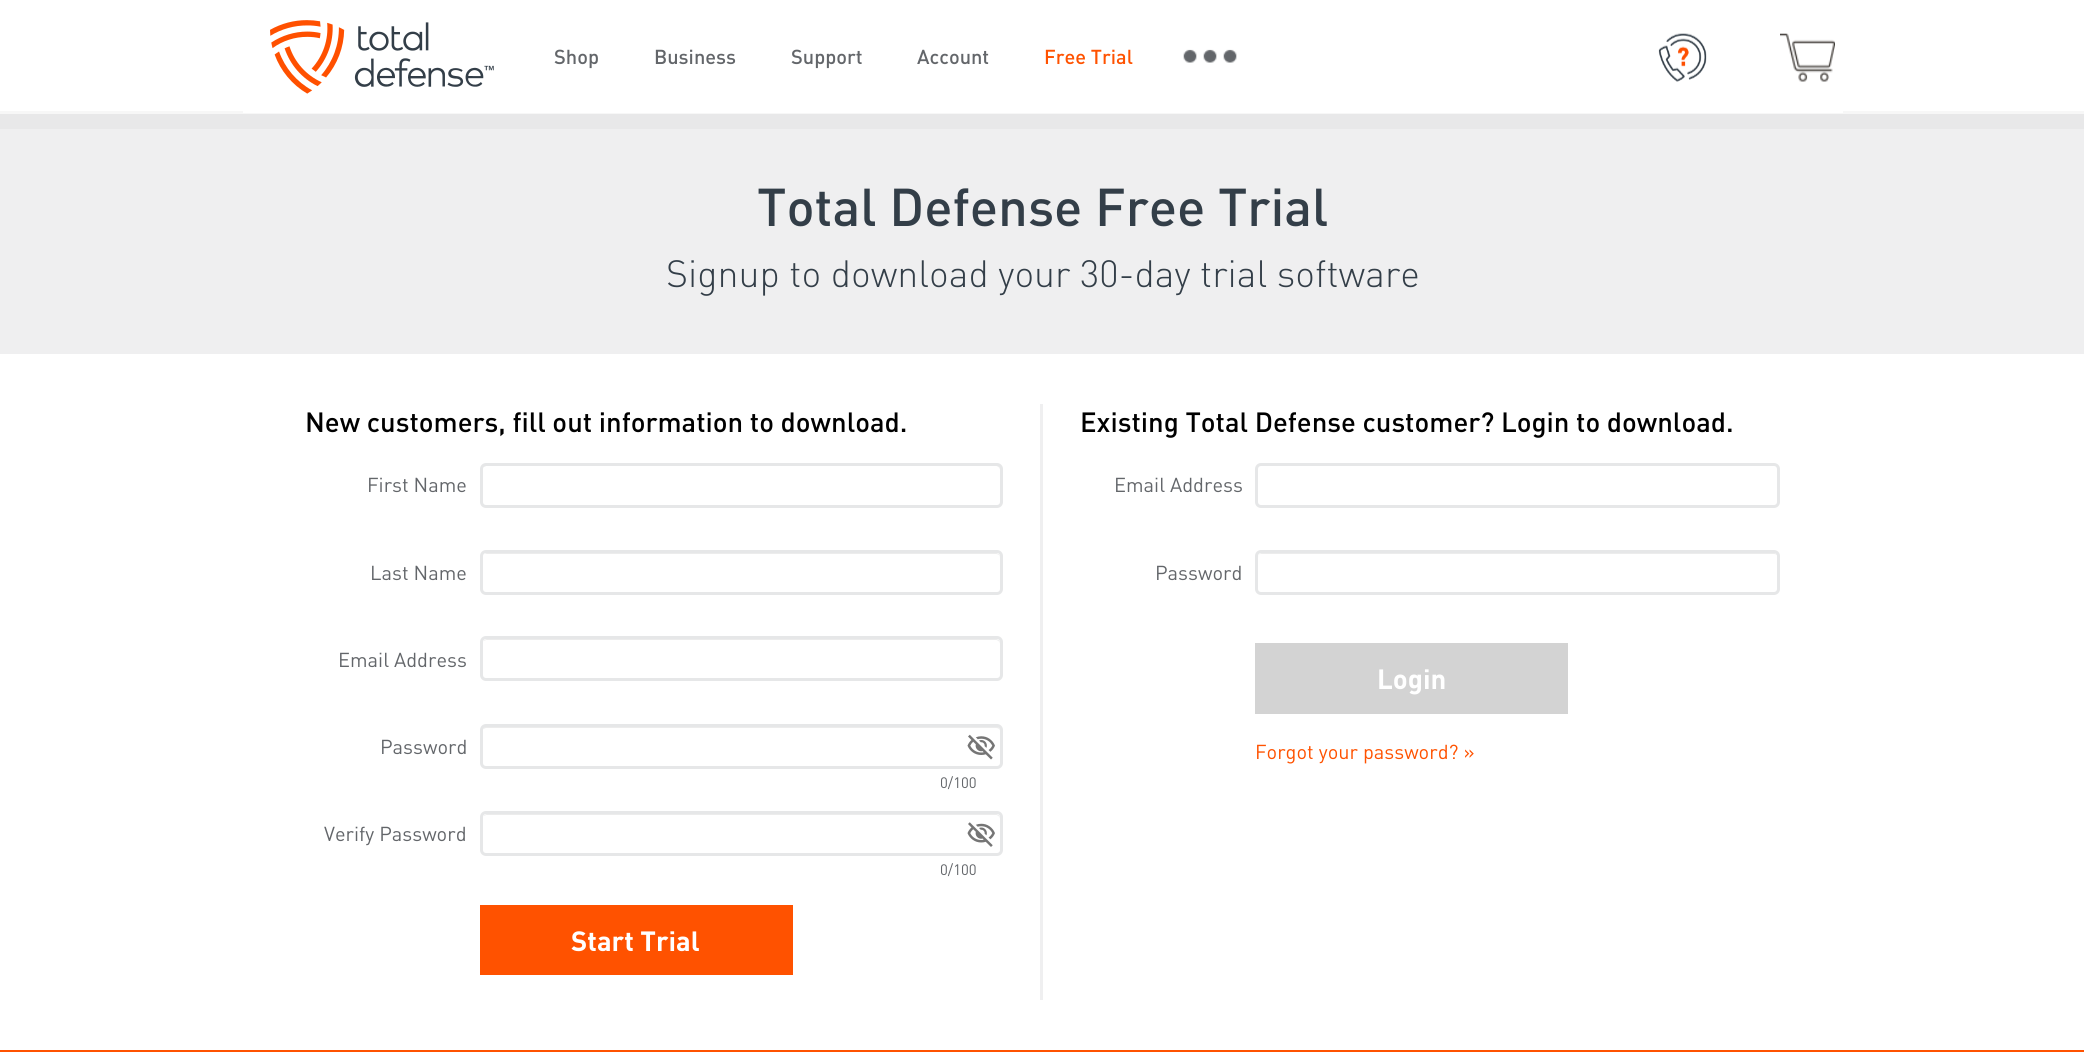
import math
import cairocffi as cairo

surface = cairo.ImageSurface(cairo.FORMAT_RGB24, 2084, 1052)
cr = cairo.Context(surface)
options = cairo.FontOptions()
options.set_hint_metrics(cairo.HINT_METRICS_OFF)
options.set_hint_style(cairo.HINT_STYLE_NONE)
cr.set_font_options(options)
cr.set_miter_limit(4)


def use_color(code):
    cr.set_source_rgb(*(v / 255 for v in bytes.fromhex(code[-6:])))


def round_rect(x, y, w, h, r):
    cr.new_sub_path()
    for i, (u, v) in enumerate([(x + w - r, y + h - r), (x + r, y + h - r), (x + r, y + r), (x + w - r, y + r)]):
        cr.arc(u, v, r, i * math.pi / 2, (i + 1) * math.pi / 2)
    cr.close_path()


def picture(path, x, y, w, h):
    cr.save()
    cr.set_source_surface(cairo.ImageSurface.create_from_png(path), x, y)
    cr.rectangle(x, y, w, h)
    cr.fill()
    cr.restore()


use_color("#ffffff")
cr.paint()
use_color("#f7f7f7")
cr.rectangle(0, 111, 2084, 3)
cr.fill()
use_color("#ffffff")
cr.rectangle(243, 111, 1600, 2)
cr.fill()
picture("img1.png", 270, 20, 224, 74)
cr.select_font_face("DIN Medium")
cr.set_font_size(20)
use_color("#63666a")
cr.move_to(554, 64)
cr.show_text("Shop")
cr.move_to(654, 64)
cr.show_text("Business")
cr.move_to(791, 64)
cr.show_text("Support")
cr.move_to(917, 64)
cr.show_text("Account")
use_color("#ff5200")
cr.move_to(1044, 64)
cr.show_text("Free Trial")
picture("img2.png", 1183, 49, 54, 14)
picture("img3.png", 1658, 33, 49, 49)
picture("img4.png", 1780, 33, 55, 49)
use_color("#efeff0")
cr.rectangle(0, 129, 2084, 225)
cr.fill()
use_color("#e8e8e9")
cr.rectangle(0, 114, 2084, 15)
cr.fill()
cr.set_font_size(52.5)
use_color("#333e48")
cr.move_to(757, 226)
cr.show_text("Total Defense Free Trial")
cr.select_font_face("DIN Light")
cr.set_font_size(37.5)
cr.move_to(666, 287)
cr.show_text("Signup to download your 30-day trial software")
use_color("#efeff0")
cr.rectangle(1040, 404, 3, 596)
cr.fill()
cr.select_font_face("DIN Medium")
cr.set_font_size(27.5)
use_color("#000000")
cr.move_to(305, 432)
cr.show_text("New customers, fill out information to download.")
cr.select_font_face("DIN")
cr.set_font_size(20)
use_color("#63666a")
cr.move_to(367, 492)
cr.show_text("First Name")
use_color("#ececec")
cr.new_path()
cr.move_to(486, 466)
cr.line_to(996, 466)
cr.curve_to(998, 466, 1000, 468, 1000, 470)
cr.line_to(1000, 469)
cr.curve_to(1000, 467, 998, 465, 996, 465)
cr.line_to(487, 465)
cr.curve_to(486, 465, 484, 466, 484, 467)
cr.close_path()
cr.fill()
round_rect(481.5, 464.5, 520, 42, 4.5)
use_color("#e6e7e8")
cr.set_line_width(3)
cr.stroke()
use_color("#63666a")
cr.move_to(370, 580)
cr.show_text("Last Name")
use_color("#ececec")
cr.new_path()
cr.move_to(486, 554)
cr.line_to(996, 554)
cr.curve_to(998, 554, 1000, 555, 1000, 558)
cr.line_to(1000, 557)
cr.curve_to(1000, 555, 998, 553, 996, 553)
cr.line_to(487, 553)
cr.curve_to(486, 553, 485, 554, 484, 554)
cr.close_path()
cr.fill()
round_rect(481.5, 551.5, 520, 42, 4.5)
use_color("#e6e7e8")
cr.stroke()
use_color("#63666a")
cr.move_to(338, 667)
cr.show_text("Email Address")
use_color("#ececec")
cr.new_path()
cr.move_to(486, 640)
cr.line_to(996, 640)
cr.curve_to(998, 640, 1000, 642, 1000, 644)
cr.line_to(1000, 643)
cr.curve_to(1000, 641, 998, 639, 996, 639)
cr.line_to(487, 639)
cr.curve_to(486, 639, 484, 640, 484, 641)
cr.close_path()
cr.fill()
round_rect(481.5, 637.5, 520, 42, 4.5)
use_color("#e6e7e8")
cr.stroke()
use_color("#63666a")
cr.move_to(380, 754)
cr.show_text("Password")
use_color("#ececec")
cr.new_path()
cr.move_to(486, 728)
cr.line_to(996, 728)
cr.curve_to(998, 728, 1000, 729, 1000, 731)
cr.line_to(1000, 730)
cr.curve_to(1000, 728, 998, 726, 996, 726)
cr.line_to(487, 726)
cr.curve_to(485, 726, 484, 727, 483, 729)
cr.close_path()
cr.fill()
round_rect(481.5, 725.5, 520, 42, 4.5)
use_color("#e6e7e8")
cr.stroke()
picture("img5.png", 967, 734, 28, 26)
cr.set_font_size(15)
use_color("#63666a")
cr.move_to(940, 788)
cr.show_text("0/100")
cr.set_font_size(20)
cr.move_to(324, 841)
cr.show_text("Verify Password")
use_color("#ececec")
cr.new_path()
cr.move_to(486, 815)
cr.line_to(996, 815)
cr.curve_to(998, 815, 1000, 817, 1000, 819)
cr.line_to(1000, 818)
cr.curve_to(1000, 816, 998, 814, 996, 814)
cr.line_to(487, 814)
cr.curve_to(486, 814, 484, 815, 484, 816)
cr.close_path()
cr.fill()
round_rect(481.5, 812.5, 520, 42, 4.5)
use_color("#e6e7e8")
cr.stroke()
picture("img6.png", 967, 822, 28, 25)
cr.set_font_size(15)
use_color("#63666a")
cr.move_to(940, 875)
cr.show_text("0/100")
use_color("#ff5200")
cr.rectangle(480, 905, 313, 70)
cr.fill()
cr.select_font_face("DIN", cairo.FONT_SLANT_NORMAL, cairo.FONT_WEIGHT_BOLD)
cr.set_font_size(27.5)
use_color("#ffffff")
cr.move_to(571, 951)
cr.show_text("Start Trial")
cr.select_font_face("DIN Medium")
use_color("#000000")
cr.move_to(1080, 432)
cr.show_text("Existing Total Defense customer? Login to download.")
cr.select_font_face("DIN")
cr.set_font_size(20)
use_color("#63666a")
cr.move_to(1114, 492)
cr.show_text("Email Address")
round_rect(1256.5, 464.5, 522, 42, 4.5)
use_color("#e6e7e8")
cr.stroke()
use_color("#63666a")
cr.move_to(1155, 580)
cr.show_text("Password")
use_color("#ececec")
cr.new_path()
cr.move_to(1261, 554)
cr.line_to(1774, 554)
cr.curve_to(1776, 554, 1778, 555, 1778, 558)
cr.line_to(1778, 557)
cr.curve_to(1778, 555, 1776, 553, 1774, 553)
cr.line_to(1262, 553)
cr.curve_to(1260, 553, 1258, 555, 1258, 557)
cr.line_to(1258, 558)
cr.curve_to(1258, 555, 1259, 554, 1261, 554)
cr.close_path()
cr.fill()
round_rect(1256.5, 551.5, 522, 42, 4.5)
use_color("#e6e7e8")
cr.stroke()
use_color("#d3d3d3")
cr.rectangle(1255, 643, 313, 71)
cr.fill()
cr.select_font_face("DIN", cairo.FONT_SLANT_NORMAL, cairo.FONT_WEIGHT_BOLD)
cr.set_font_size(27.5)
use_color("#ffffff")
cr.move_to(1377, 689)
cr.show_text("Login")
cr.select_font_face("DIN")
cr.set_font_size(20)
use_color("#ff5200")
cr.move_to(1255, 759)
cr.show_text("Forgot your password? »")
cr.rectangle(0, 1050, 2084, 2)
cr.fill()
surface.write_to_png("result.png")
